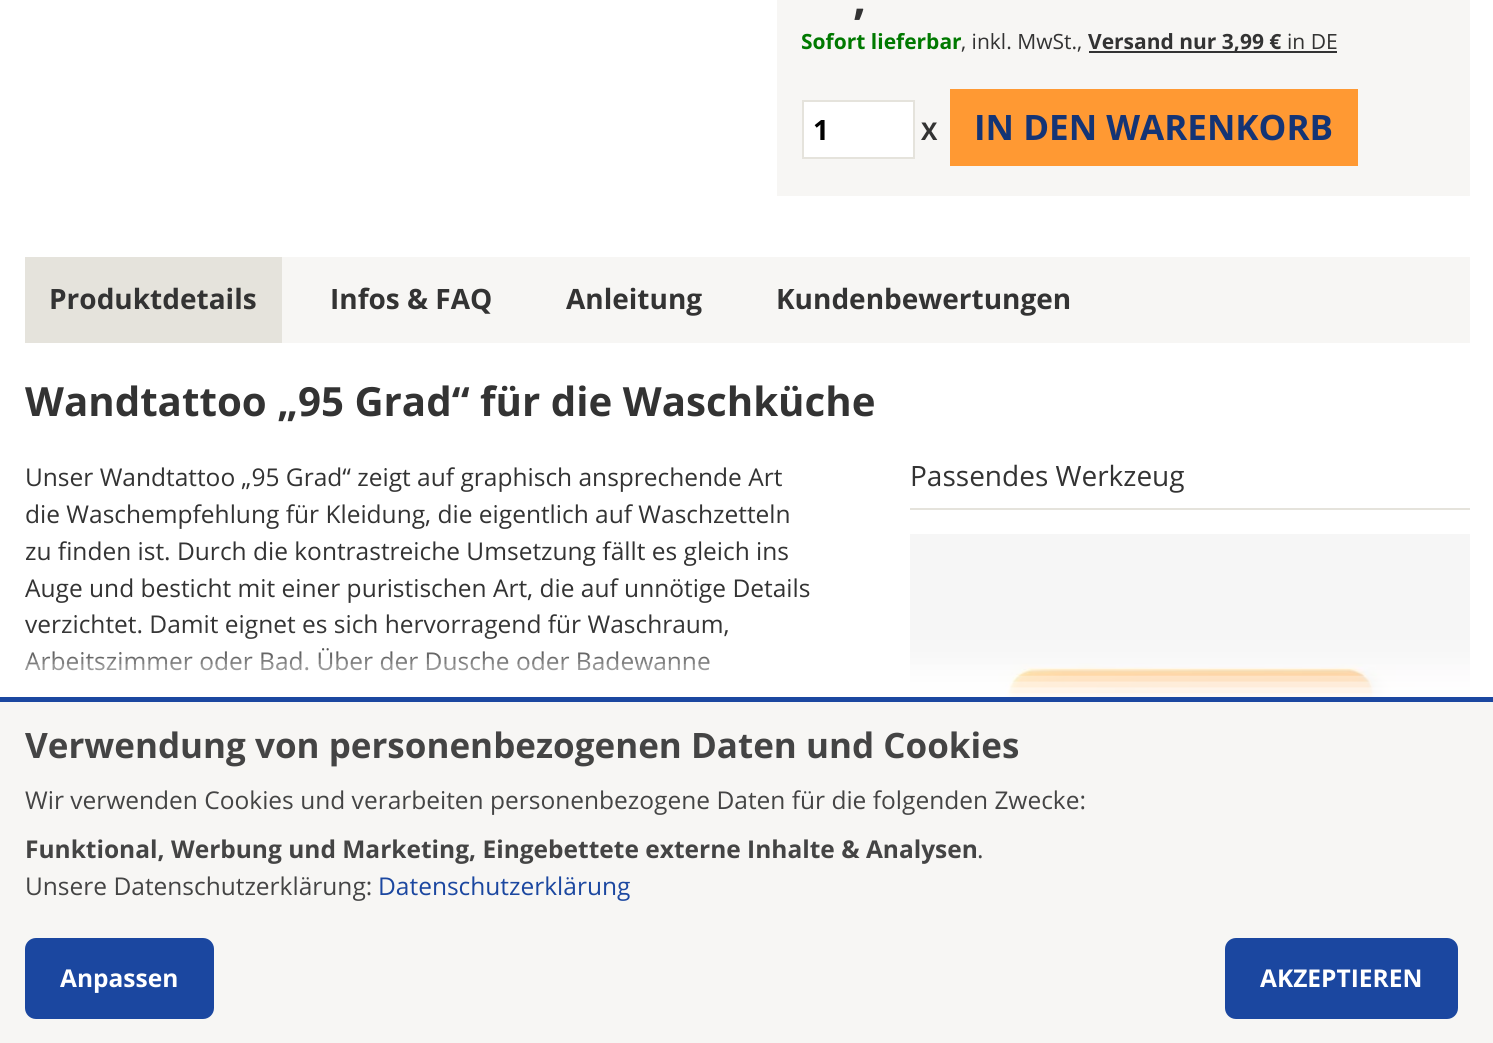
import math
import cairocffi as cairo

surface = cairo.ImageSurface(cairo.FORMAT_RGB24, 1493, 1043)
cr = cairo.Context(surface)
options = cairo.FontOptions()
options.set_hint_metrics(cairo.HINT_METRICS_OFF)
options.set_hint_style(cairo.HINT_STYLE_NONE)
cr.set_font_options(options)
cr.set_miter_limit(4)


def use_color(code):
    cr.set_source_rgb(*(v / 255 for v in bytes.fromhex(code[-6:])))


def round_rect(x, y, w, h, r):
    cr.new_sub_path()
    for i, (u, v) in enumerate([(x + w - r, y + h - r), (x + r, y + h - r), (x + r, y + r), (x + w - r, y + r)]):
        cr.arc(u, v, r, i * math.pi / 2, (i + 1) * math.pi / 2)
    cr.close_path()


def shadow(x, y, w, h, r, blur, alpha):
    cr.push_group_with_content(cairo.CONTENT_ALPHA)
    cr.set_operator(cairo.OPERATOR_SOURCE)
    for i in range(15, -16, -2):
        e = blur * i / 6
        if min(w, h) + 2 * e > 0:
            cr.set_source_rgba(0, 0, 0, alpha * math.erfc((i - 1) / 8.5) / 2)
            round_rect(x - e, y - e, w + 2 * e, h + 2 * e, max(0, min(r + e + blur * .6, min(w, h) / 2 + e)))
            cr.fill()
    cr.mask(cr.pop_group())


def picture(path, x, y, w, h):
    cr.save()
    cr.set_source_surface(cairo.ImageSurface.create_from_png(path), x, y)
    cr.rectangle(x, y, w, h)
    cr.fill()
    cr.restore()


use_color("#ffffff")
cr.paint()
use_color("#f7f6f4")
cr.rectangle(777, 0, 693, 196)
cr.fill()
cr.select_font_face("Open Sans", cairo.FONT_SLANT_NORMAL, cairo.FONT_WEIGHT_BOLD)
cr.set_font_size(46)
use_color("#333333")
cr.move_to(853, 14)
cr.show_text(",")
cr.set_font_size(21)
use_color("#007900")
cr.move_to(801, 49)
cr.show_text("Sofort lieferbar")
cr.select_font_face("Open Sans")
use_color("#333333")
cr.move_to(961, 49)
cr.show_text(", inkl. MwSt.,")
cr.rectangle(1089, 51, 248, 2)
cr.fill()
cr.select_font_face("Open Sans", cairo.FONT_SLANT_NORMAL, cairo.FONT_WEIGHT_BOLD)
cr.move_to(1088, 49)
cr.show_text("Versand nur 3,99 €")
cr.select_font_face("Open Sans")
cr.move_to(1287, 49)
cr.show_text("in DE")
use_color("#ffffff")
cr.rectangle(803, 101, 111, 57)
cr.fill_preserve()
use_color("#e5e3dc")
cr.stroke()
cr.select_font_face("Open Sans", cairo.FONT_SLANT_NORMAL, cairo.FONT_WEIGHT_BOLD)
cr.set_font_size(28)
use_color("#000000")
cr.move_to(813, 140)
cr.show_text("1")
cr.set_font_size(24.5)
use_color("#333333")
cr.move_to(921, 140)
cr.show_text("X")
use_color("#ff9933")
cr.rectangle(950, 89, 408, 77)
cr.fill()
cr.set_font_size(35)
use_color("#143475")
cr.move_to(974, 140)
cr.show_text("IN DEN WARENKORB")
use_color("#f7f6f4")
cr.rectangle(282, 257, 1188, 86)
cr.fill()
use_color("#e5e3dc")
cr.rectangle(25, 257, 257, 86)
cr.fill()
cr.set_font_size(28)
use_color("#333333")
cr.move_to(49, 309)
cr.show_text("Produktdetails")
cr.move_to(330, 309)
cr.show_text("Infos & FAQ")
cr.move_to(566, 309)
cr.show_text("Anleitung")
cr.move_to(776, 309)
cr.show_text("Kundenbewertungen")
cr.set_font_size(40.25)
cr.move_to(25, 416)
cr.show_text("Wandtattoo „95 Grad“ für die Waschküche")
cr.select_font_face("Open Sans")
cr.set_font_size(24.5)
cr.move_to(25, 486)
cr.show_text("Unser Wandtattoo „95 Grad“ zeigt auf graphisch ansprechende Art")
cr.move_to(25, 523)
cr.show_text("die Waschempfehlung für Kleidung, die eigentlich auf Waschzetteln")
cr.move_to(25, 560)
cr.show_text("zu finden ist. Durch die kontrastreiche Umsetzung fällt es gleich ins")
cr.move_to(25, 597)
cr.show_text("Auge und besticht mit einer puristischen Art, die auf unnötige Details")
cr.move_to(25, 633)
cr.show_text("verzichtet. Damit eignet es sich hervorragend für Waschraum,")
cr.move_to(25, 670)
cr.show_text("Arbeitszimmer oder Bad. Über der Dusche oder Badewanne")
use_color("#e5e3dc")
cr.rectangle(910, 508, 560, 2)
cr.fill()
cr.set_font_size(28)
use_color("#333333")
cr.move_to(910, 486)
cr.show_text("Passendes Werkzeug")
picture("img1.png", 910, 534, 560, 163)
use_color("#ffffff")
shadow(-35, 667, 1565, 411, 0, 17.5, 1)
use_color("#f7f6f4")
cr.rectangle(0, 702, 1493, 341)
cr.fill()
use_color("#1b47a0")
round_rect(27.5, 940.5, 184, 76, 8.5)
cr.fill_preserve()
cr.set_line_width(5)
cr.stroke()
round_rect(1227.5, 940.5, 228, 76, 8.5)
cr.fill_preserve()
cr.stroke()
cr.rectangle(-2.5, 699.5, 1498, 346)
cr.stroke()
cr.select_font_face("Open Sans", cairo.FONT_SLANT_NORMAL, cairo.FONT_WEIGHT_BOLD)
cr.set_font_size(35)
use_color("#444444")
cr.move_to(25, 758)
cr.show_text("Verwendung von personenbezogenen Daten und Cookies")
cr.select_font_face("Open Sans")
cr.set_font_size(24.5)
cr.move_to(25, 809)
cr.show_text("Wir verwenden Cookies und verarbeiten personenbezogene Daten für die folgenden Zwecke:")
cr.select_font_face("Open Sans", cairo.FONT_SLANT_NORMAL, cairo.FONT_WEIGHT_BOLD)
cr.move_to(25, 858)
cr.show_text("Funktional, Werbung und Marketing, Eingebettete externe Inhalte & Analysen")
cr.select_font_face("Open Sans")
cr.move_to(977, 858)
cr.show_text(".")
cr.move_to(25, 895)
cr.show_text("Unsere Datenschutzerklärung:")
use_color("#1b47a0")
cr.move_to(378, 895)
cr.show_text("Datenschutzerklärung")
cr.select_font_face("Open Sans", cairo.FONT_SLANT_NORMAL, cairo.FONT_WEIGHT_BOLD)
use_color("#ffffff")
cr.move_to(60, 987)
cr.show_text("Anpassen")
cr.move_to(1260, 987)
cr.show_text("AKZEPTIEREN")
surface.write_to_png("result.png")
